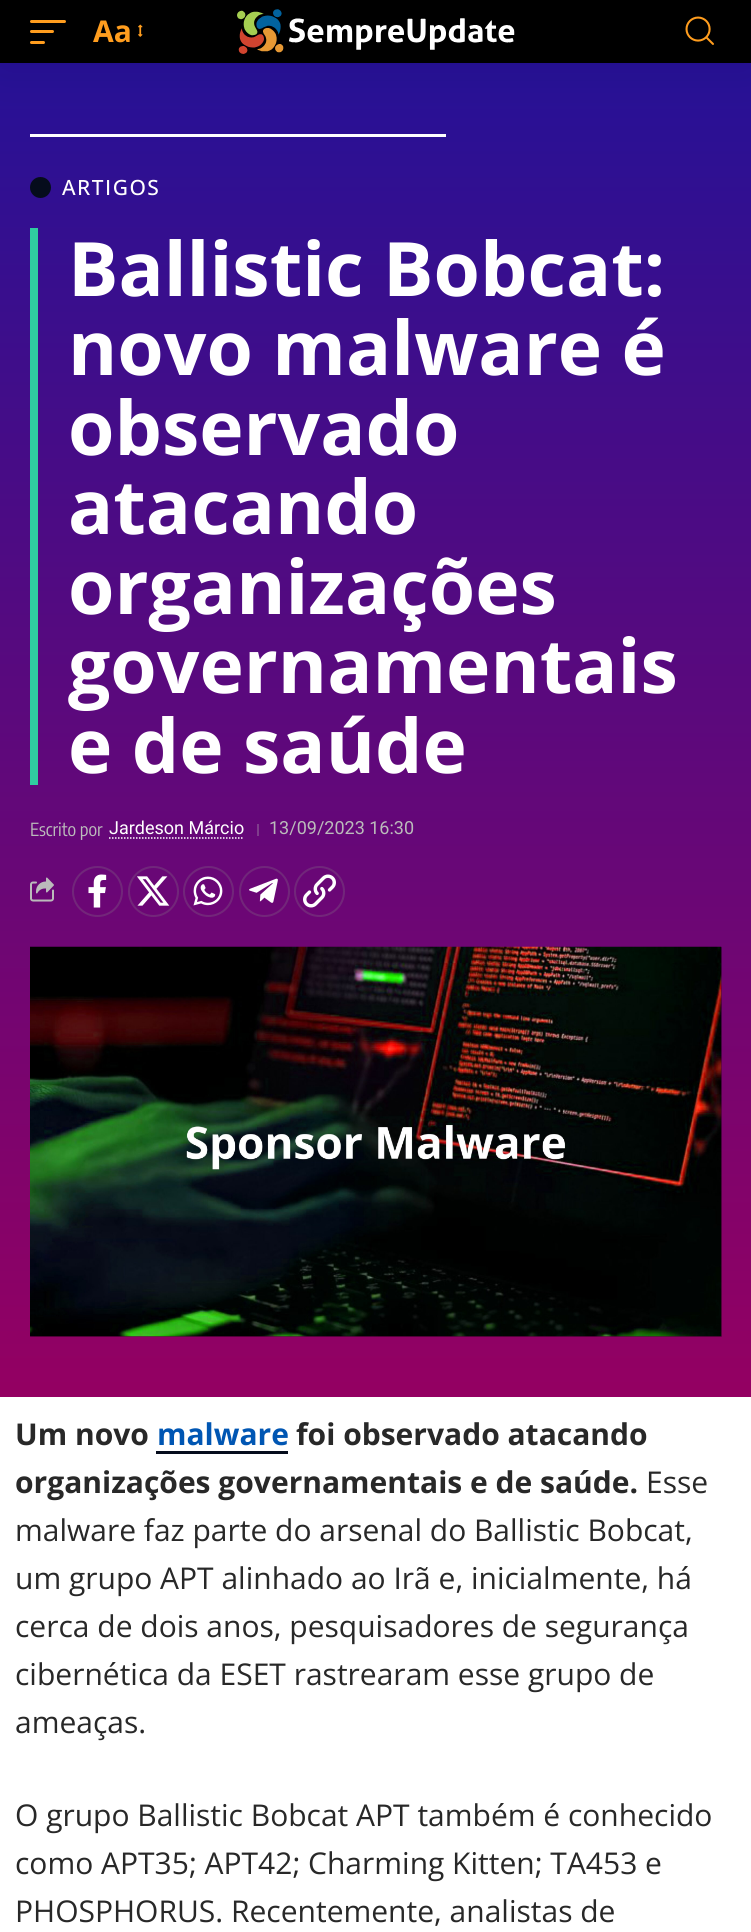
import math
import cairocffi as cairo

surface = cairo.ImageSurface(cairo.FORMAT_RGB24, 751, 1932)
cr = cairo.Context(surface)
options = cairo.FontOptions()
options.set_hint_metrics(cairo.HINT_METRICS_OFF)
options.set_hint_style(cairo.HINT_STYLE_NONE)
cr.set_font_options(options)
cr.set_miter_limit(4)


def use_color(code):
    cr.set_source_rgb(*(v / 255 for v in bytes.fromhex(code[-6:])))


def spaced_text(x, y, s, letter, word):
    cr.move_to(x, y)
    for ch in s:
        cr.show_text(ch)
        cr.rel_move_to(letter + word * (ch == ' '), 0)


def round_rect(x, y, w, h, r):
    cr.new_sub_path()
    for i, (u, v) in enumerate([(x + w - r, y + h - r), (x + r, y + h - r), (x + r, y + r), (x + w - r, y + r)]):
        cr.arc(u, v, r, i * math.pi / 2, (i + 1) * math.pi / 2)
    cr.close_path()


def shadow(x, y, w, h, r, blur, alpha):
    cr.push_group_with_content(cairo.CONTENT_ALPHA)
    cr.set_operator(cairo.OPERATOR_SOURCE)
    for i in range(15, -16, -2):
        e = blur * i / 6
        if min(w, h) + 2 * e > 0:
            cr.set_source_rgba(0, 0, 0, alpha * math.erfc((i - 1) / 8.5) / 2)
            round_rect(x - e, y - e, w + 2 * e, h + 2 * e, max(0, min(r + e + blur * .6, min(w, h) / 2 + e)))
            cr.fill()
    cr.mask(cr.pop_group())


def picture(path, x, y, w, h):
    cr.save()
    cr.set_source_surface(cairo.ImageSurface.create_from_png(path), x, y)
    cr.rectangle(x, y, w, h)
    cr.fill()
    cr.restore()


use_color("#ffffff")
cr.paint()
gradient = cairo.LinearGradient(376, 63, 376, 1397)
gradient.add_color_stop_rgba(0, 0.149, 0.067, 0.588, 1)
gradient.add_color_stop_rgba(1, 0.58, 0, 0.384, 1)
cr.set_source(gradient)
cr.rectangle(0, 63, 751, 1334)
cr.fill()
use_color("#ffffff")
cr.rectangle(30, 134, 416, 3)
cr.fill()
use_color("#000000")
shadow(0, 6, 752, 63, 0, 22.5, 0.07)
use_color("#000000")
cr.rectangle(0, 0, 751, 63)
cr.fill()
use_color("#ff9d1e")
round_rect(30, 20, 36, 3, 1.5)
cr.fill()
round_rect(30, 30, 24, 3, 1.5)
cr.fill()
round_rect(30, 41, 15, 3, 1.5)
cr.fill()
cr.select_font_face("Open Sans", cairo.FONT_SLANT_NORMAL, cairo.FONT_WEIGHT_BOLD)
cr.set_font_size(30)
cr.move_to(93, 42)
cr.show_text("Aa")
picture("img1.png", 138, 24, 5, 13)
picture("img2.png", 237, 9, 278, 45)
picture("img3.png", 685, 16, 29, 29)
use_color("#050c1c")
cr.arc(40.5, 187.5, 10.5, 0, 2 * math.pi)
cr.fill()
cr.select_font_face("Open Sans Medium")
cr.set_font_size(21)
use_color("#ffffff")
spaced_text(62, 195, "ARTIGOS", 1.5, 0)
use_color("#30cca0")
cr.rectangle(30, 228, 8, 557)
cr.fill()
cr.select_font_face("Open Sans", cairo.FONT_SLANT_NORMAL, cairo.FONT_WEIGHT_BOLD)
cr.set_font_size(75)
use_color("#ffffff")
cr.move_to(68, 296)
cr.show_text("Ballistic Bobcat:")
cr.move_to(68, 375)
cr.show_text("novo malware é")
cr.move_to(68, 455)
cr.show_text("observado")
cr.move_to(68, 534)
cr.show_text("atacando")
cr.move_to(68, 614)
cr.show_text("organizações")
cr.move_to(68, 693)
cr.show_text("governamentais")
cr.move_to(68, 773)
cr.show_text("e de saúde")
cr.select_font_face("Encode Sans Condensed")
cr.set_font_size(18)
use_color("#bbbbbb")
cr.move_to(30, 836)
cr.show_text("Escrito por")
cr.select_font_face("Roboto")
use_color("#ffffff")
cr.move_to(109, 834)
cr.show_text("Jardeson Márcio")
cr.new_path()
cr.move_to(109, 838)
cr.line_to(244, 838)
cr.set_line_width(1.5)
cr.set_dash([1.5, 1.5])
cr.stroke()
use_color("#7f3d8c")
cr.rectangle(257, 824, 2, 12)
cr.fill()
use_color("#bbbbbb")
cr.move_to(269, 834)
cr.show_text("13/09/2023 16:30")
picture("img4.png", 30, 877, 24, 25)
cr.arc(97.5, 891.5, 24.5, 0, 2 * math.pi)
cr.set_source_rgba(0.533, 0.533, 0.533, 0.25)
cr.set_line_width(2)
cr.set_dash([])
cr.stroke()
picture("img5.png", 88, 874, 19, 34)
cr.arc(153.5, 891.5, 24.5, 0, 2 * math.pi)
cr.stroke()
picture("img6.png", 137, 876, 33, 30)
cr.arc(208.5, 891.5, 24.5, 0, 2 * math.pi)
cr.stroke()
picture("img7.png", 193, 876, 30, 30)
cr.arc(264.5, 891.5, 24.5, 0, 2 * math.pi)
cr.stroke()
picture("img8.png", 249, 878, 29, 25)
cr.arc(319.5, 891.5, 24.5, 0, 2 * math.pi)
cr.stroke()
picture("img9.png", 303, 874, 33, 34)
cr.save()
cr.rectangle(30, 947, 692, 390)
cr.clip()
use_color("#000000")
shadow(30, 947, 692, 390, 0, 7.5, 0.5)
cr.restore()
picture("img10.png", 30, 946, 692, 391)
cr.select_font_face("Open Sans", cairo.FONT_SLANT_NORMAL, cairo.FONT_WEIGHT_BOLD)
cr.set_font_size(30)
use_color("#282828")
cr.move_to(15, 1445)
cr.show_text("Um novo")
use_color("#0056b3")
cr.move_to(157, 1445)
cr.show_text("malware")
use_color("#050c1c")
cr.rectangle(156, 1451, 132, 3)
cr.fill()
use_color("#282828")
cr.move_to(296, 1445)
cr.show_text("foi observado atacando")
cr.move_to(15, 1493)
cr.show_text("organizações governamentais e de saúde.")
cr.select_font_face("Open Sans")
cr.move_to(646, 1493)
cr.show_text("Esse")
cr.move_to(15, 1541)
cr.show_text("malware faz parte do arsenal do Ballistic Bobcat,")
cr.move_to(15, 1589)
cr.show_text("um grupo APT alinhado ao Irã e, inicialmente, há")
cr.move_to(15, 1637)
cr.show_text("cerca de dois anos, pesquisadores de segurança")
cr.move_to(15, 1685)
cr.show_text("cibernética da ESET rastrearam esse grupo de")
cr.move_to(15, 1733)
cr.show_text("ameaças.")
cr.move_to(15, 1826)
cr.show_text("O grupo Ballistic Bobcat APT também é conhecido")
cr.move_to(15, 1874)
cr.show_text("como APT35; APT42; Charming Kitten; TA453 e")
cr.move_to(15, 1922)
cr.show_text("PHOSPHORUS. Recentemente, analistas de")
surface.write_to_png("result.png")
